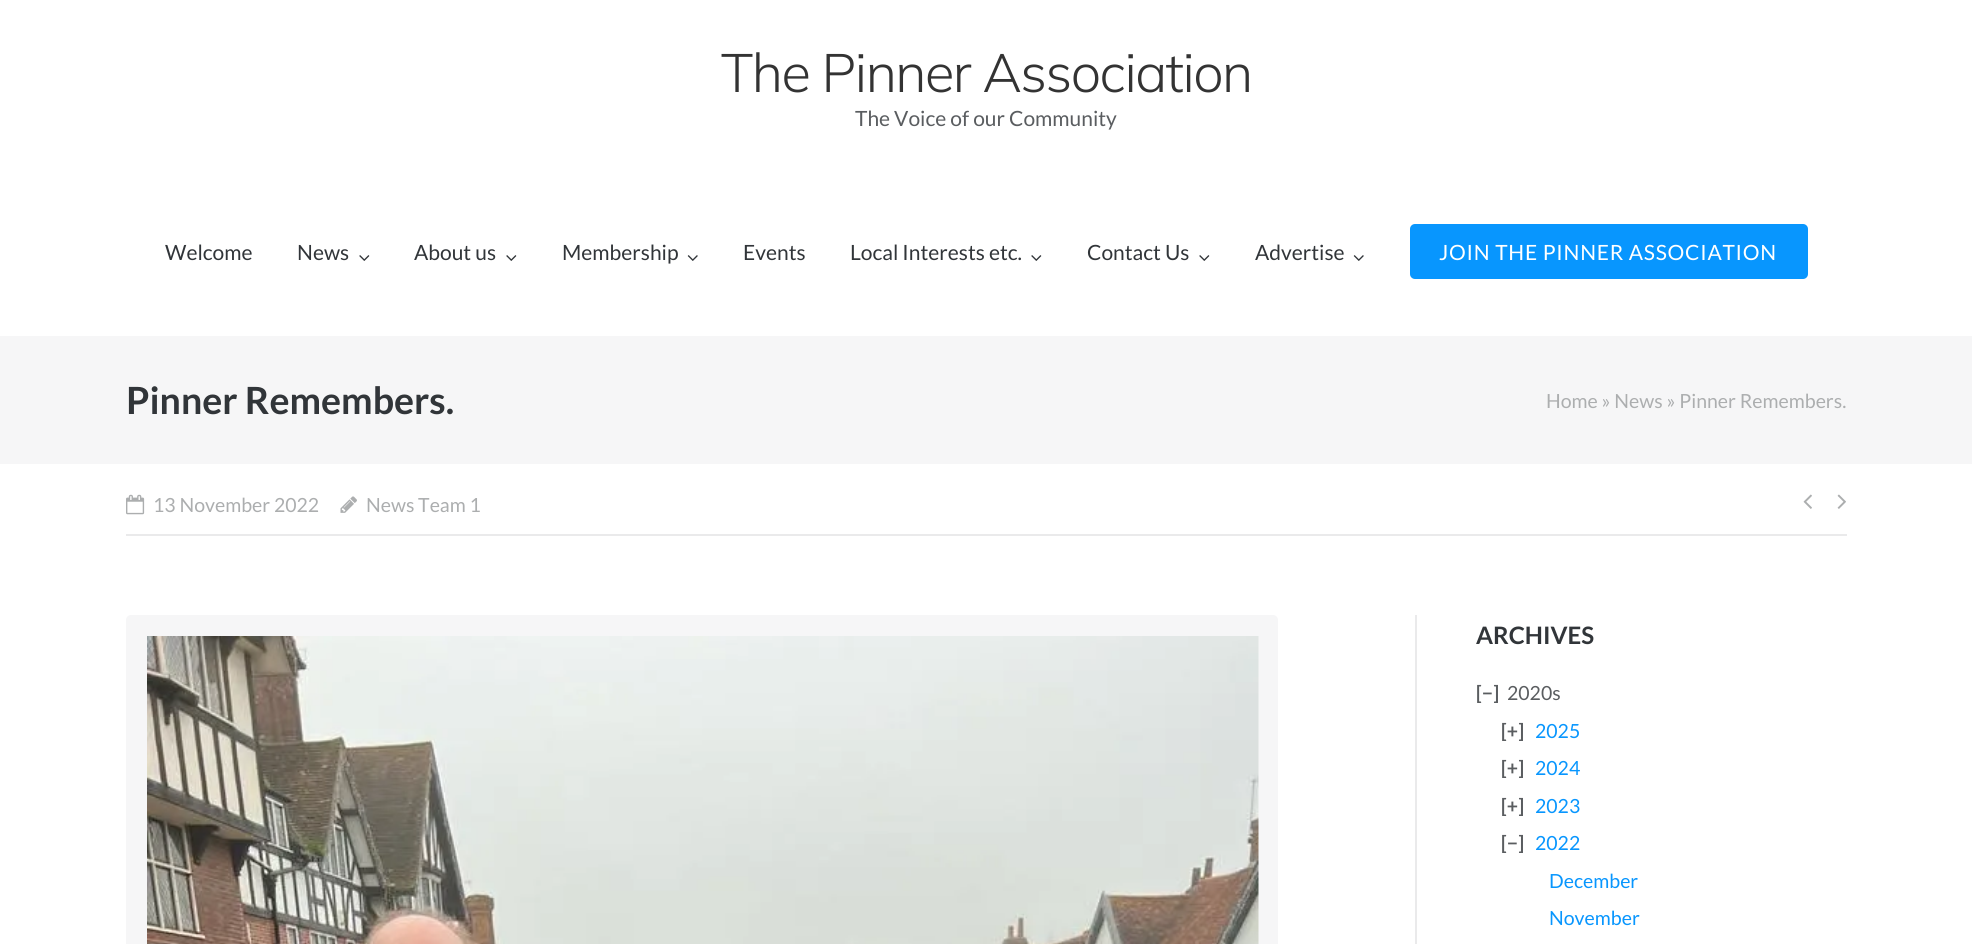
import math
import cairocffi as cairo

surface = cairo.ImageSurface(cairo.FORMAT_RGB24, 1972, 944)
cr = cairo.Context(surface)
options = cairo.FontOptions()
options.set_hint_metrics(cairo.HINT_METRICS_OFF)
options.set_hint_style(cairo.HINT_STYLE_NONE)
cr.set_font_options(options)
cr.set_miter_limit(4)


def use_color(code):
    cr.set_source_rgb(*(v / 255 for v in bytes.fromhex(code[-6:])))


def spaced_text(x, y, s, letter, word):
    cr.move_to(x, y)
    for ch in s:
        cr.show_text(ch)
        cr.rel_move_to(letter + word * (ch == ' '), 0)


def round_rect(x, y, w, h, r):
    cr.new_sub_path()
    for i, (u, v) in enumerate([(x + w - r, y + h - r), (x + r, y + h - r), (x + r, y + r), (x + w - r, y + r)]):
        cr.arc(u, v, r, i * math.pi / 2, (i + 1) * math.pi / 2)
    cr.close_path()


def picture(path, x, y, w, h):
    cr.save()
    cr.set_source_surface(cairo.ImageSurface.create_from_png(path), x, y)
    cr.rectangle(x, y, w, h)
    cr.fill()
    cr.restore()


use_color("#ffffff")
cr.paint()
cr.select_font_face("Mulish ExtraLight")
cr.set_font_size(54)
use_color("#333333")
spaced_text(721, 92, "The Pinner Association", -1.5, 0)
cr.select_font_face("Lato")
cr.set_font_size(21)
use_color("#5a5d60")
cr.move_to(855, 126)
cr.show_text("The Voice of our Community")
use_color("#313539")
cr.move_to(165, 260)
cr.show_text("Welcome")
cr.move_to(297, 260)
cr.show_text("News")
picture("img1.png", 359, 255, 11, 6)
cr.move_to(414, 260)
cr.show_text("About us")
picture("img1.png", 506, 255, 11, 6)
cr.move_to(562, 260)
cr.show_text("Membership")
picture("img2.png", 687, 255, 11, 6)
cr.move_to(743, 260)
cr.show_text("Events")
cr.move_to(850, 260)
cr.show_text("Local Interests etc.")
picture("img1.png", 1031, 255, 11, 6)
cr.move_to(1087, 260)
cr.show_text("Contact Us")
picture("img1.png", 1199, 255, 11, 6)
cr.move_to(1255, 260)
cr.show_text("Advertise")
picture("img2.png", 1353, 255, 11, 6)
use_color("#0896fe")
round_rect(1410, 224, 398, 55, 5)
cr.fill()
use_color("#ffffff")
spaced_text(1439, 260, "JOIN THE PINNER ASSOCIATION", 0.75, 0)
use_color("#f6f6f7")
cr.rectangle(0, 336, 1972, 128)
cr.fill()
cr.select_font_face("Lato", cairo.FONT_SLANT_NORMAL, cairo.FONT_WEIGHT_BOLD)
cr.set_font_size(37.5)
use_color("#313539")
cr.move_to(126, 414)
cr.show_text("Pinner Remembers.")
cr.select_font_face("Lato")
cr.set_font_size(19.5)
use_color("#acaeaf")
cr.move_to(1546, 408)
cr.show_text("Home » News » Pinner Remembers.")
use_color("#eaeaeb")
cr.rectangle(126, 534, 1721, 2)
cr.fill()
picture("img3.png", 126, 494, 19, 21)
use_color("#acaeaf")
cr.move_to(153, 512)
cr.show_text("13 November 2022")
picture("img4.png", 340, 496, 17, 17)
cr.move_to(366, 512)
cr.show_text("News Team 1")
picture("img5.png", 1803, 494, 9, 15)
picture("img6.png", 1837, 494, 9, 15)
use_color("#eaeaeb")
cr.rectangle(1415, 615, 2, 329)
cr.fill()
use_color("#f6f6f7")
round_rect(126, 615, 1152, 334, 5)
cr.fill()
picture("img7.png", 147, 636, 1112, 308)
cr.select_font_face("Lato", cairo.FONT_SLANT_NORMAL, cairo.FONT_WEIGHT_BOLD)
cr.set_font_size(24)
use_color("#313539")
cr.move_to(1476, 644)
cr.show_text("ARCHIVES")
cr.set_font_size(19.5)
use_color("#5a5d60")
cr.move_to(1476, 700)
cr.show_text("[−]")
cr.select_font_face("Lato")
cr.move_to(1507, 700)
cr.show_text("2020s")
cr.select_font_face("Lato", cairo.FONT_SLANT_NORMAL, cairo.FONT_WEIGHT_BOLD)
cr.move_to(1501, 738)
cr.show_text("[+]")
cr.select_font_face("Lato")
use_color("#0896fe")
cr.move_to(1535, 738)
cr.show_text("2025")
cr.select_font_face("Lato", cairo.FONT_SLANT_NORMAL, cairo.FONT_WEIGHT_BOLD)
use_color("#5a5d60")
cr.move_to(1501, 775)
cr.show_text("[+]")
cr.select_font_face("Lato")
use_color("#0896fe")
cr.move_to(1535, 775)
cr.show_text("2024")
cr.select_font_face("Lato", cairo.FONT_SLANT_NORMAL, cairo.FONT_WEIGHT_BOLD)
use_color("#5a5d60")
cr.move_to(1501, 813)
cr.show_text("[+]")
cr.select_font_face("Lato")
use_color("#0896fe")
cr.move_to(1535, 813)
cr.show_text("2023")
cr.select_font_face("Lato", cairo.FONT_SLANT_NORMAL, cairo.FONT_WEIGHT_BOLD)
use_color("#5a5d60")
cr.move_to(1501, 850)
cr.show_text("[−]")
cr.select_font_face("Lato")
use_color("#0896fe")
cr.move_to(1535, 850)
cr.show_text("2022")
cr.move_to(1549, 888)
cr.show_text("December")
cr.move_to(1549, 925)
cr.show_text("November")
surface.write_to_png("result.png")
